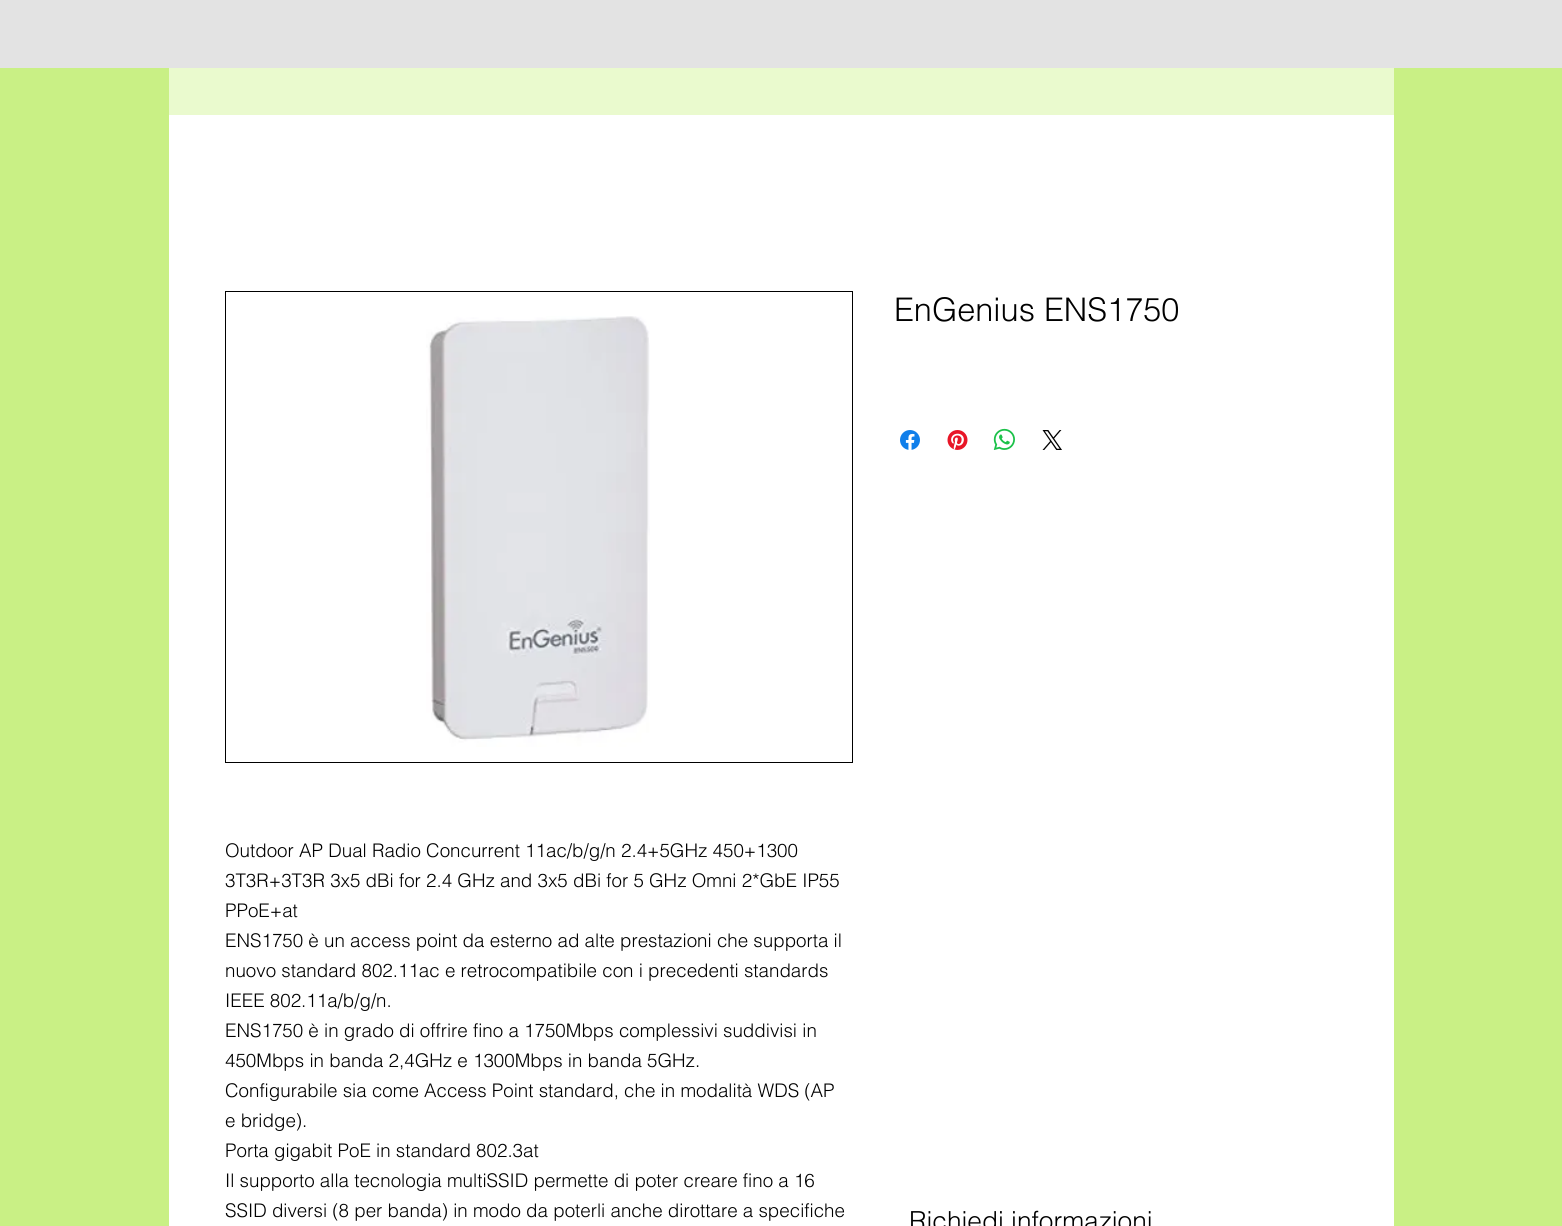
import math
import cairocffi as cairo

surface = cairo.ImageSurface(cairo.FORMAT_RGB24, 1562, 1226)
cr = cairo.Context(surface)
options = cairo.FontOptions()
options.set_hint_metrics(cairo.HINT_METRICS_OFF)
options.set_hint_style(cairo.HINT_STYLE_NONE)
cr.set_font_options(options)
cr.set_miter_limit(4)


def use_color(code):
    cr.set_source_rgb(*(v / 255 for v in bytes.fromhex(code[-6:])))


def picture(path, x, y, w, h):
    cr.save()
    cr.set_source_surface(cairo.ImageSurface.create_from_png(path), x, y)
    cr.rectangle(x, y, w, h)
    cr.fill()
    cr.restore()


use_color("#c9f085")
cr.paint()
use_color("#e3e3e3")
cr.rectangle(0, 0, 1562, 68)
cr.fill()
use_color("#eaface")
cr.rectangle(169, 68, 1225, 47)
cr.fill()
use_color("#ffffff")
cr.rectangle(169, 115, 1225, 1111)
cr.fill()
cr.select_font_face("helvetica Light")
cr.set_font_size(32.5)
use_color("#000000")
cr.move_to(894, 321)
cr.show_text("EnGenius ENS1750")
picture("img1.png", 900, 430, 20, 20)
picture("img2.png", 947, 430, 21, 20)
picture("img3.png", 993, 428, 22, 22)
picture("img4.png", 1042, 430, 20, 20)
cr.rectangle(225.5, 291.5, 627, 471)
cr.set_line_width(1)
cr.stroke()
picture("img5.png", 426, 316, 224, 431)
cr.set_font_size(18.75)
cr.move_to(225, 857)
cr.show_text("Outdoor AP Dual Radio Concurrent 11ac/b/g/n 2.4+5GHz 450+1300")
cr.move_to(225, 887)
cr.show_text("3T3R+3T3R 3x5 dBi for 2.4 GHz and 3x5 dBi for 5 GHz Omni 2*GbE IP55")
cr.move_to(225, 917)
cr.show_text("PPoE+at")
cr.move_to(225, 947)
cr.show_text("ENS1750 è un access point da esterno ad alte prestazioni che supporta il")
cr.move_to(225, 977)
cr.show_text("nuovo standard 802.11ac e retrocompatibile con i precedenti standards")
cr.move_to(225, 1007)
cr.show_text("IEEE 802.11a/b/g/n.")
cr.move_to(225, 1037)
cr.show_text("ENS1750 è in grado di offrire fino a 1750Mbps complessivi suddivisi in")
cr.move_to(225, 1067)
cr.show_text("450Mbps in banda 2,4GHz e 1300Mbps in banda 5GHz.")
cr.move_to(225, 1097)
cr.show_text("Configurabile sia come Access Point standard, che in modalità WDS (AP")
cr.move_to(225, 1127)
cr.show_text("e bridge).")
cr.move_to(225, 1157)
cr.show_text("Porta gigabit PoE in standard 802.3at")
cr.move_to(225, 1187)
cr.show_text("Il supporto alla tecnologia multiSSID permette di poter creare fino a 16")
cr.move_to(225, 1217)
cr.show_text("SSID diversi (8 per banda) in modo da poterli anche dirottare a specifiche")
cr.set_font_size(26.25)
cr.move_to(909, 1230)
cr.show_text("Richiedi informazioni")
surface.write_to_png("result.png")
